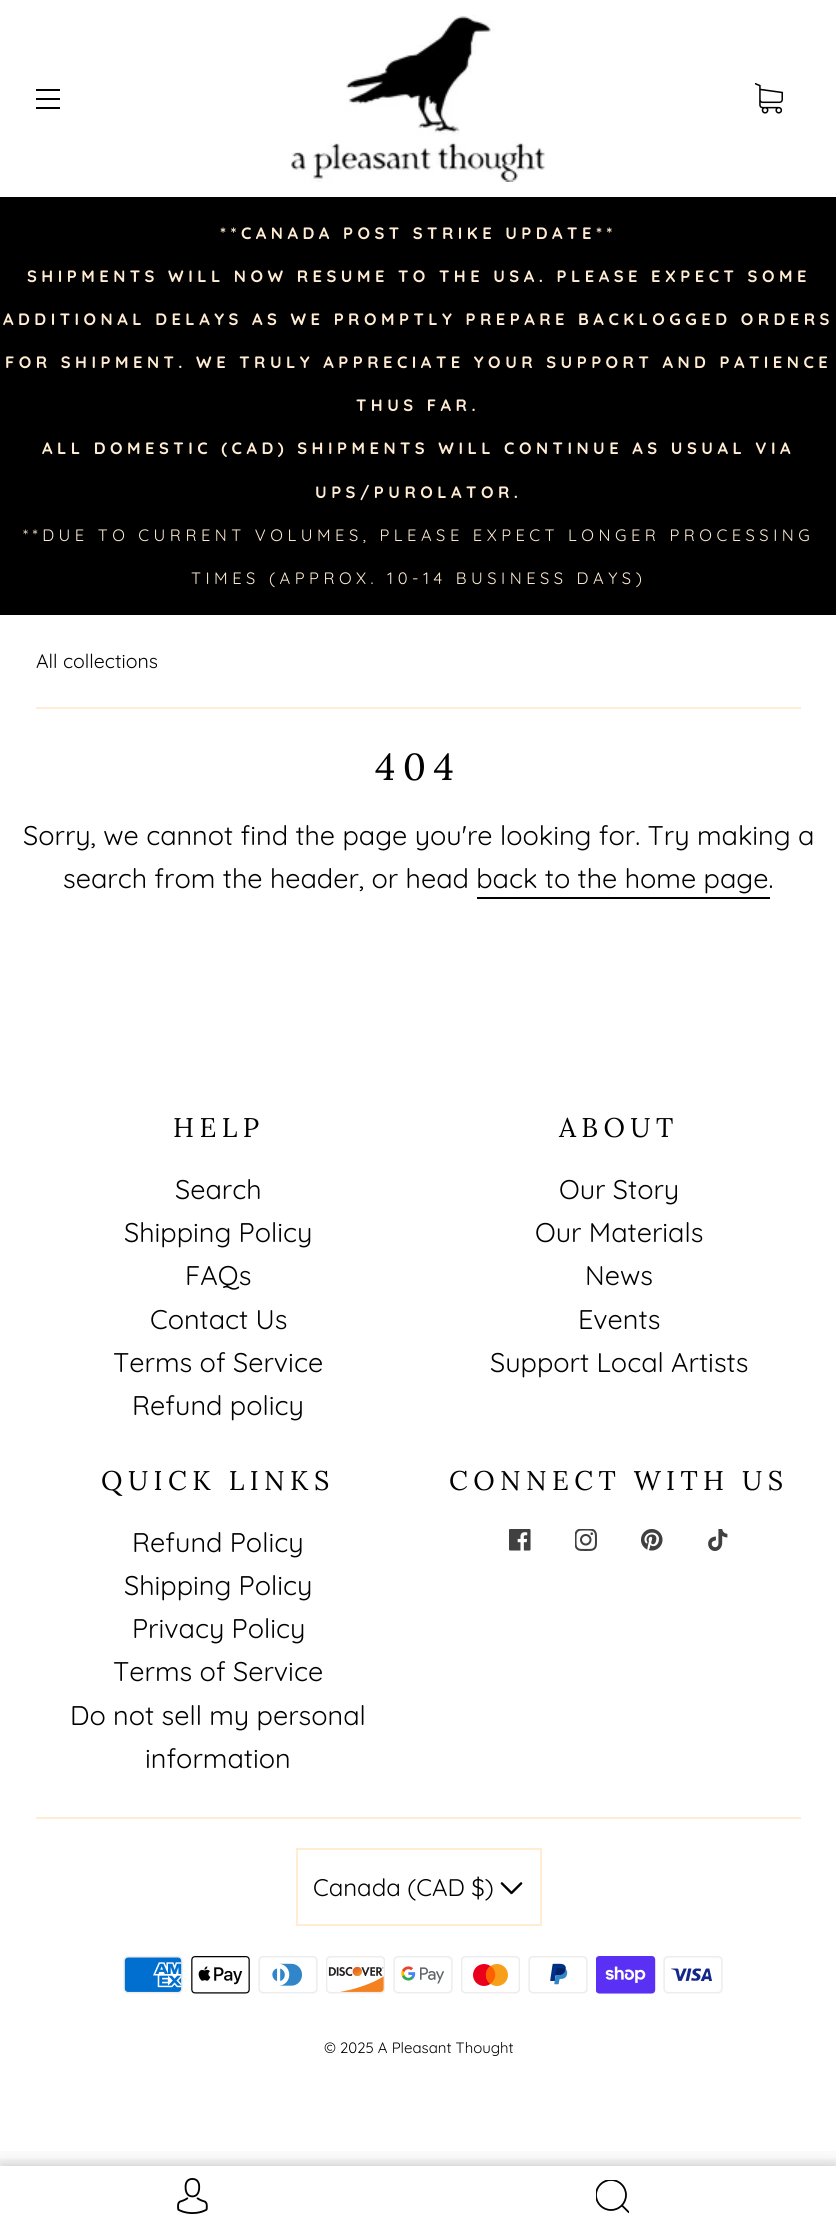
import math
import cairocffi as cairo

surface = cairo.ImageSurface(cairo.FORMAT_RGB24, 836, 2225)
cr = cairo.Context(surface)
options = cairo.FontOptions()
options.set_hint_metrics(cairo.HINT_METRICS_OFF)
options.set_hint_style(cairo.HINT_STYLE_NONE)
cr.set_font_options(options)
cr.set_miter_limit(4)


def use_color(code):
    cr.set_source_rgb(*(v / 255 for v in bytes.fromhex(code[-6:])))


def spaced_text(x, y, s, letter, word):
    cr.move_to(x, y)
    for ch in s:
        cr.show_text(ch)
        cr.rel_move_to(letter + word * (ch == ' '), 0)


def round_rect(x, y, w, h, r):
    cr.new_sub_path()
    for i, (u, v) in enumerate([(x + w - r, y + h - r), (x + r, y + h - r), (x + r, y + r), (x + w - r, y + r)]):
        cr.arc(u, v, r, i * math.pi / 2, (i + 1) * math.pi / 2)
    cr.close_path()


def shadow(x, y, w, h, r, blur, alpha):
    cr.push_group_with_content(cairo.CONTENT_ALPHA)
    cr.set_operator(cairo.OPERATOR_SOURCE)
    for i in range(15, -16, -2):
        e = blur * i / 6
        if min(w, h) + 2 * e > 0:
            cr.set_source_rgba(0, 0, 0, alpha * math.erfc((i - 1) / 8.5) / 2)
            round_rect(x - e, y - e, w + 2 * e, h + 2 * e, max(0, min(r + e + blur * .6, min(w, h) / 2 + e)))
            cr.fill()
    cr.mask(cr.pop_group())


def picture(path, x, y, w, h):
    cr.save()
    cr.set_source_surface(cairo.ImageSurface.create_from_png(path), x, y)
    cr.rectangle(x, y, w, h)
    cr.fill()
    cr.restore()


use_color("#ffffff")
cr.paint()
use_color("#000000")
cr.rectangle(0, 197, 836, 418)
cr.fill()
use_color("#000000")
shadow(0, 9, 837, 197, 0, 15, 0.06)
shadow(0, 5, 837, 196, 0, 4, 0.12)
use_color("#ffffff")
cr.rectangle(0, 0, 836, 197)
cr.fill()
use_color("#000000")
cr.rectangle(36, 89, 24, 2)
cr.fill()
cr.rectangle(36, 98, 24, 2)
cr.fill()
cr.rectangle(36, 107, 24, 2)
cr.fill()
picture("img1.png", 291, 15, 254, 167)
picture("img2.png", 755, 83, 28, 31)
cr.select_font_face("Quicksand", cairo.FONT_SLANT_NORMAL, cairo.FONT_WEIGHT_BOLD)
cr.set_font_size(16.5)
use_color("#ffecd2")
spaced_text(220, 239, "**CANADA POST STRIKE UPDATE**", 4.5, 0)
spaced_text(27, 282, "SHIPMENTS WILL NOW RESUME TO THE USA. PLEASE EXPECT SOME", 4.5, 0)
spaced_text(3, 325, "ADDITIONAL DELAYS AS WE PROMPTLY PREPARE BACKLOGGED ORDERS", 4.5, 0)
spaced_text(5, 368, "FOR SHIPMENT. WE TRULY APPRECIATE YOUR SUPPORT AND PATIENCE", 4.5, 0)
spaced_text(356, 411, "THUS FAR.", 4.5, 0)
spaced_text(42, 454, "ALL DOMESTIC (CAD) SHIPMENTS WILL CONTINUE AS USUAL VIA", 4.5, 0)
spaced_text(315, 498, "UPS/PUROLATOR.", 4.5, 0)
cr.select_font_face("Quicksand")
spaced_text(23, 541, "**DUE TO CURRENT VOLUMES, PLEASE EXPECT LONGER PROCESSING", 4.5, 0)
spaced_text(191, 584, "TIMES (APPROX. 10-14 BUSINESS DAYS)", 4.5, 0)
cr.rectangle(36, 707, 765, 2)
cr.fill()
cr.set_font_size(19.5)
use_color("#000000")
cr.move_to(36, 668)
cr.show_text("All collections")
cr.select_font_face("Lora")
cr.set_font_size(37.5)
spaced_text(375, 780, "404", 7.5, 0)
cr.select_font_face("Quicksand")
cr.set_font_size(27)
cr.move_to(23, 845)
cr.show_text("Sorry, we cannot find the page you're looking for. Try making a")
cr.move_to(63, 888)
cr.show_text("search from the header, or head back to the home page.")
cr.rectangle(477, 897, 293, 2)
cr.fill()
cr.select_font_face("Lora")
spaced_text(173, 1137, "HELP", 5.4, 0)
cr.select_font_face("Quicksand")
cr.move_to(175, 1199)
cr.show_text("Search")
cr.move_to(124, 1242)
cr.show_text("Shipping Policy")
cr.move_to(185, 1285)
cr.show_text("FAQs")
cr.move_to(150, 1329)
cr.show_text("Contact Us")
cr.move_to(113, 1372)
cr.show_text("Terms of Service")
cr.move_to(132, 1415)
cr.show_text("Refund policy")
cr.select_font_face("Lora")
spaced_text(559, 1137, "ABOUT", 5.4, 0)
cr.select_font_face("Quicksand")
cr.move_to(559, 1199)
cr.show_text("Our Story")
cr.move_to(535, 1242)
cr.show_text("Our Materials")
cr.move_to(585, 1285)
cr.show_text("News")
cr.move_to(578, 1329)
cr.show_text("Events")
cr.move_to(490, 1372)
cr.show_text("Support Local Artists")
cr.select_font_face("Lora")
spaced_text(101, 1490, "QUICK LINKS", 5.4, 0)
cr.select_font_face("Quicksand")
cr.move_to(132, 1552)
cr.show_text("Refund Policy")
cr.move_to(124, 1595)
cr.show_text("Shipping Policy")
cr.move_to(132, 1638)
cr.show_text("Privacy Policy")
cr.move_to(113, 1681)
cr.show_text("Terms of Service")
cr.move_to(70, 1725)
cr.show_text("Do not sell my personal")
cr.move_to(145, 1768)
cr.show_text("information")
cr.select_font_face("Lora")
spaced_text(449, 1490, "CONNECT WITH US", 5.4, 0)
picture("img3.png", 509, 1529, 22, 22)
picture("img4.png", 575, 1529, 22, 22)
picture("img5.png", 641, 1529, 22, 22)
picture("img6.png", 708, 1529, 20, 22)
use_color("#ffecd2")
cr.rectangle(36, 1817, 765, 2)
cr.fill()
cr.rectangle(297, 1849, 244, 76)
cr.stroke()
cr.select_font_face("Quicksand")
cr.set_font_size(24)
use_color("#000000")
cr.move_to(313, 1896)
cr.show_text("Canada (CAD $)")
picture("img7.png", 500, 1882, 23, 13)
picture("img8.png", 123, 1956, 60, 38)
picture("img9.png", 191, 1956, 59, 38)
picture("img10.png", 258, 1956, 60, 38)
picture("img11.png", 326, 1956, 59, 38)
picture("img12.png", 393, 1956, 60, 38)
picture("img13.png", 461, 1956, 59, 38)
picture("img14.png", 528, 1956, 60, 38)
picture("img15.png", 596, 1956, 60, 38)
picture("img16.png", 663, 1956, 60, 38)
cr.set_font_size(15)
cr.move_to(324, 2053)
cr.show_text("© 2025 A Pleasant Thought")
cr.save()
cr.rectangle(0, 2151, 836, 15)
cr.clip()
use_color("#000000")
shadow(0, 2157, 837, 60, 0, 15, 0.06)
cr.restore()
cr.save()
cr.rectangle(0, 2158, 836, 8)
cr.clip()
use_color("#000000")
shadow(0, 2162, 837, 60, 0, 4, 0.12)
cr.restore()
picture("img17.png", 177, 2178, 31, 36)
cr.save()
cr.rectangle(596, 2180, 33, 33)
cr.clip()
cr.arc(611, 2195, 15, 0, 2 * math.pi)
cr.set_line_width(1.8)
cr.stroke()
cr.new_path()
cr.move_to(621.5, 2205)
cr.line_to(632, 2215.5)
cr.stroke()
cr.restore()
surface.write_to_png("result.png")
